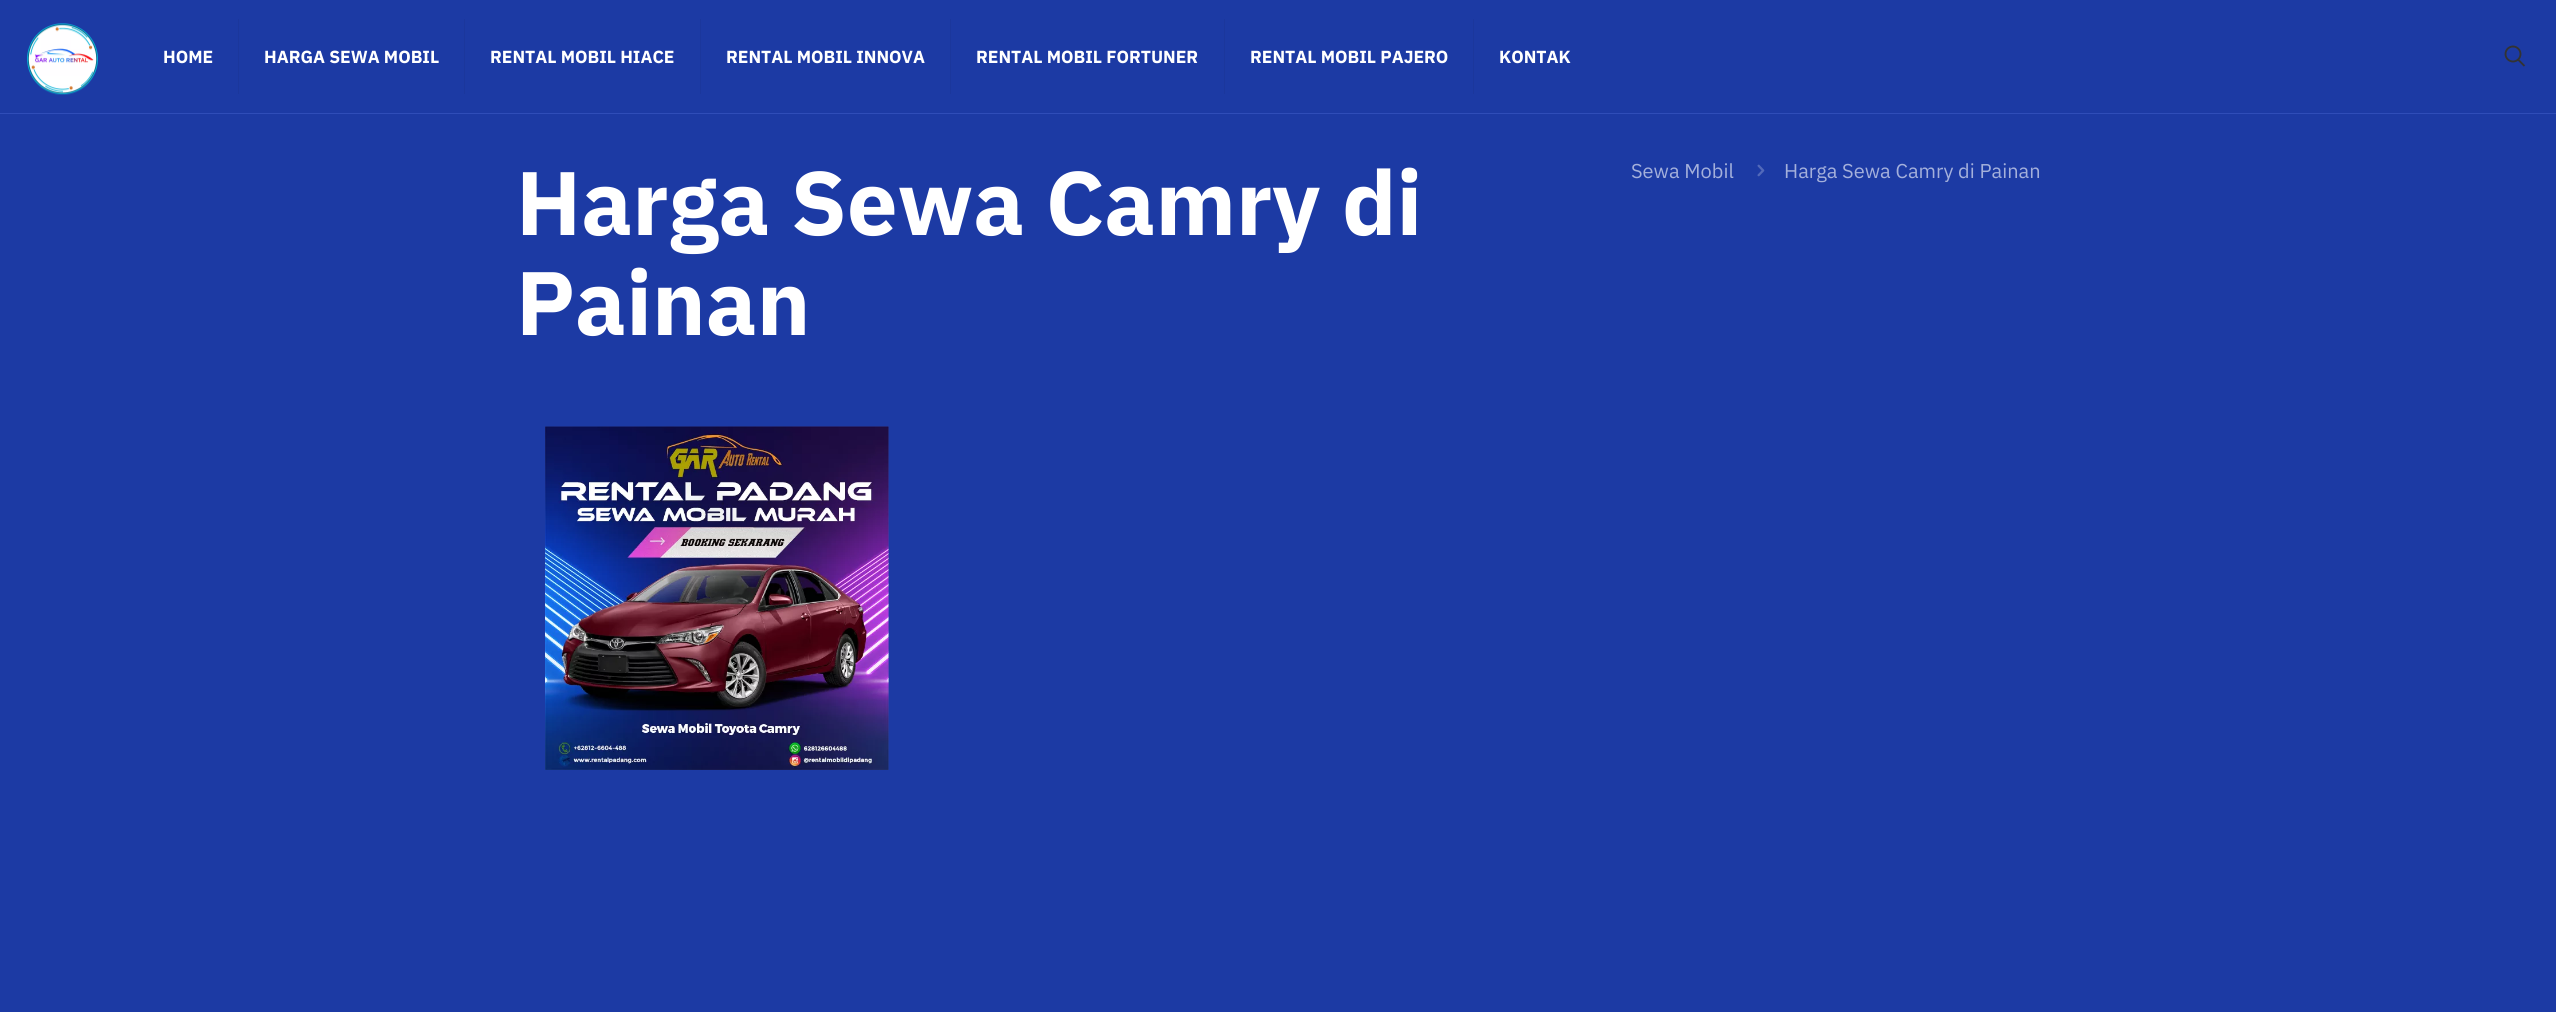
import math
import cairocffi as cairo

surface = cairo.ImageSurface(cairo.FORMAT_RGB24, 2556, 1012)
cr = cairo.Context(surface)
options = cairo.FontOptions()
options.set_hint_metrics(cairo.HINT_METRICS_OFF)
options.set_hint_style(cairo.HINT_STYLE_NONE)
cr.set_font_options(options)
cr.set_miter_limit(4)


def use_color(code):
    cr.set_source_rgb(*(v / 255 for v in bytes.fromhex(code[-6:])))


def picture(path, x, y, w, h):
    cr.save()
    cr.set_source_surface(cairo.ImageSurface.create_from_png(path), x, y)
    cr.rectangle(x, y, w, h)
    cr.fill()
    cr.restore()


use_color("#1c3aa4")
cr.paint()
use_color("#2f4db8")
cr.rectangle(0, 113, 2556, 1)
cr.fill()
picture("img1.png", 27, 23, 71, 72)
use_color("#1b379c")
cr.rectangle(238, 19, 1, 75)
cr.fill()
cr.select_font_face("IBM Plex Sans", cairo.FONT_SLANT_NORMAL, cairo.FONT_WEIGHT_BOLD)
cr.set_font_size(17.5)
use_color("#ffffff")
cr.move_to(163, 63)
cr.show_text("HOME")
use_color("#1b379c")
cr.rectangle(464, 19, 1, 75)
cr.fill()
use_color("#ffffff")
cr.move_to(264, 63)
cr.show_text("HARGA SEWA MOBIL")
use_color("#1b379c")
cr.rectangle(700, 19, 1, 75)
cr.fill()
use_color("#ffffff")
cr.move_to(490, 63)
cr.show_text("RENTAL MOBIL HIACE")
use_color("#1b379c")
cr.rectangle(950, 19, 1, 75)
cr.fill()
use_color("#ffffff")
cr.move_to(726, 63)
cr.show_text("RENTAL MOBIL INNOVA")
use_color("#1b379c")
cr.rectangle(1224, 19, 1, 75)
cr.fill()
use_color("#ffffff")
cr.move_to(976, 63)
cr.show_text("RENTAL MOBIL FORTUNER")
use_color("#1b379c")
cr.rectangle(1473, 19, 1, 75)
cr.fill()
use_color("#ffffff")
cr.move_to(1250, 63)
cr.show_text("RENTAL MOBIL PAJERO")
cr.move_to(1499, 63)
cr.show_text("KONTAK")
cr.new_path()
cr.arc(2513, 54, 7.5, 0, 2 * math.pi)
use_color("#333333")
cr.set_line_width(1.9)
cr.stroke()
cr.new_path()
cr.move_to(2518, 59.5)
cr.line_to(2524.5, 66)
cr.stroke()
cr.set_font_size(90)
use_color("#ffffff")
cr.move_to(516, 235)
cr.show_text("Harga Sewa Camry di")
cr.move_to(516, 335)
cr.show_text("Painan")
cr.select_font_face("IBM Plex Sans")
cr.set_font_size(20)
use_color("#a4b0db")
cr.move_to(1631, 178)
cr.show_text("Sewa Mobil")
picture("img2.png", 1757, 164, 8, 13)
cr.move_to(1784, 178)
cr.show_text("Harga Sewa Camry di Painan")
picture("img3.png", 545, 426, 344, 344)
surface.write_to_png("result.png")
